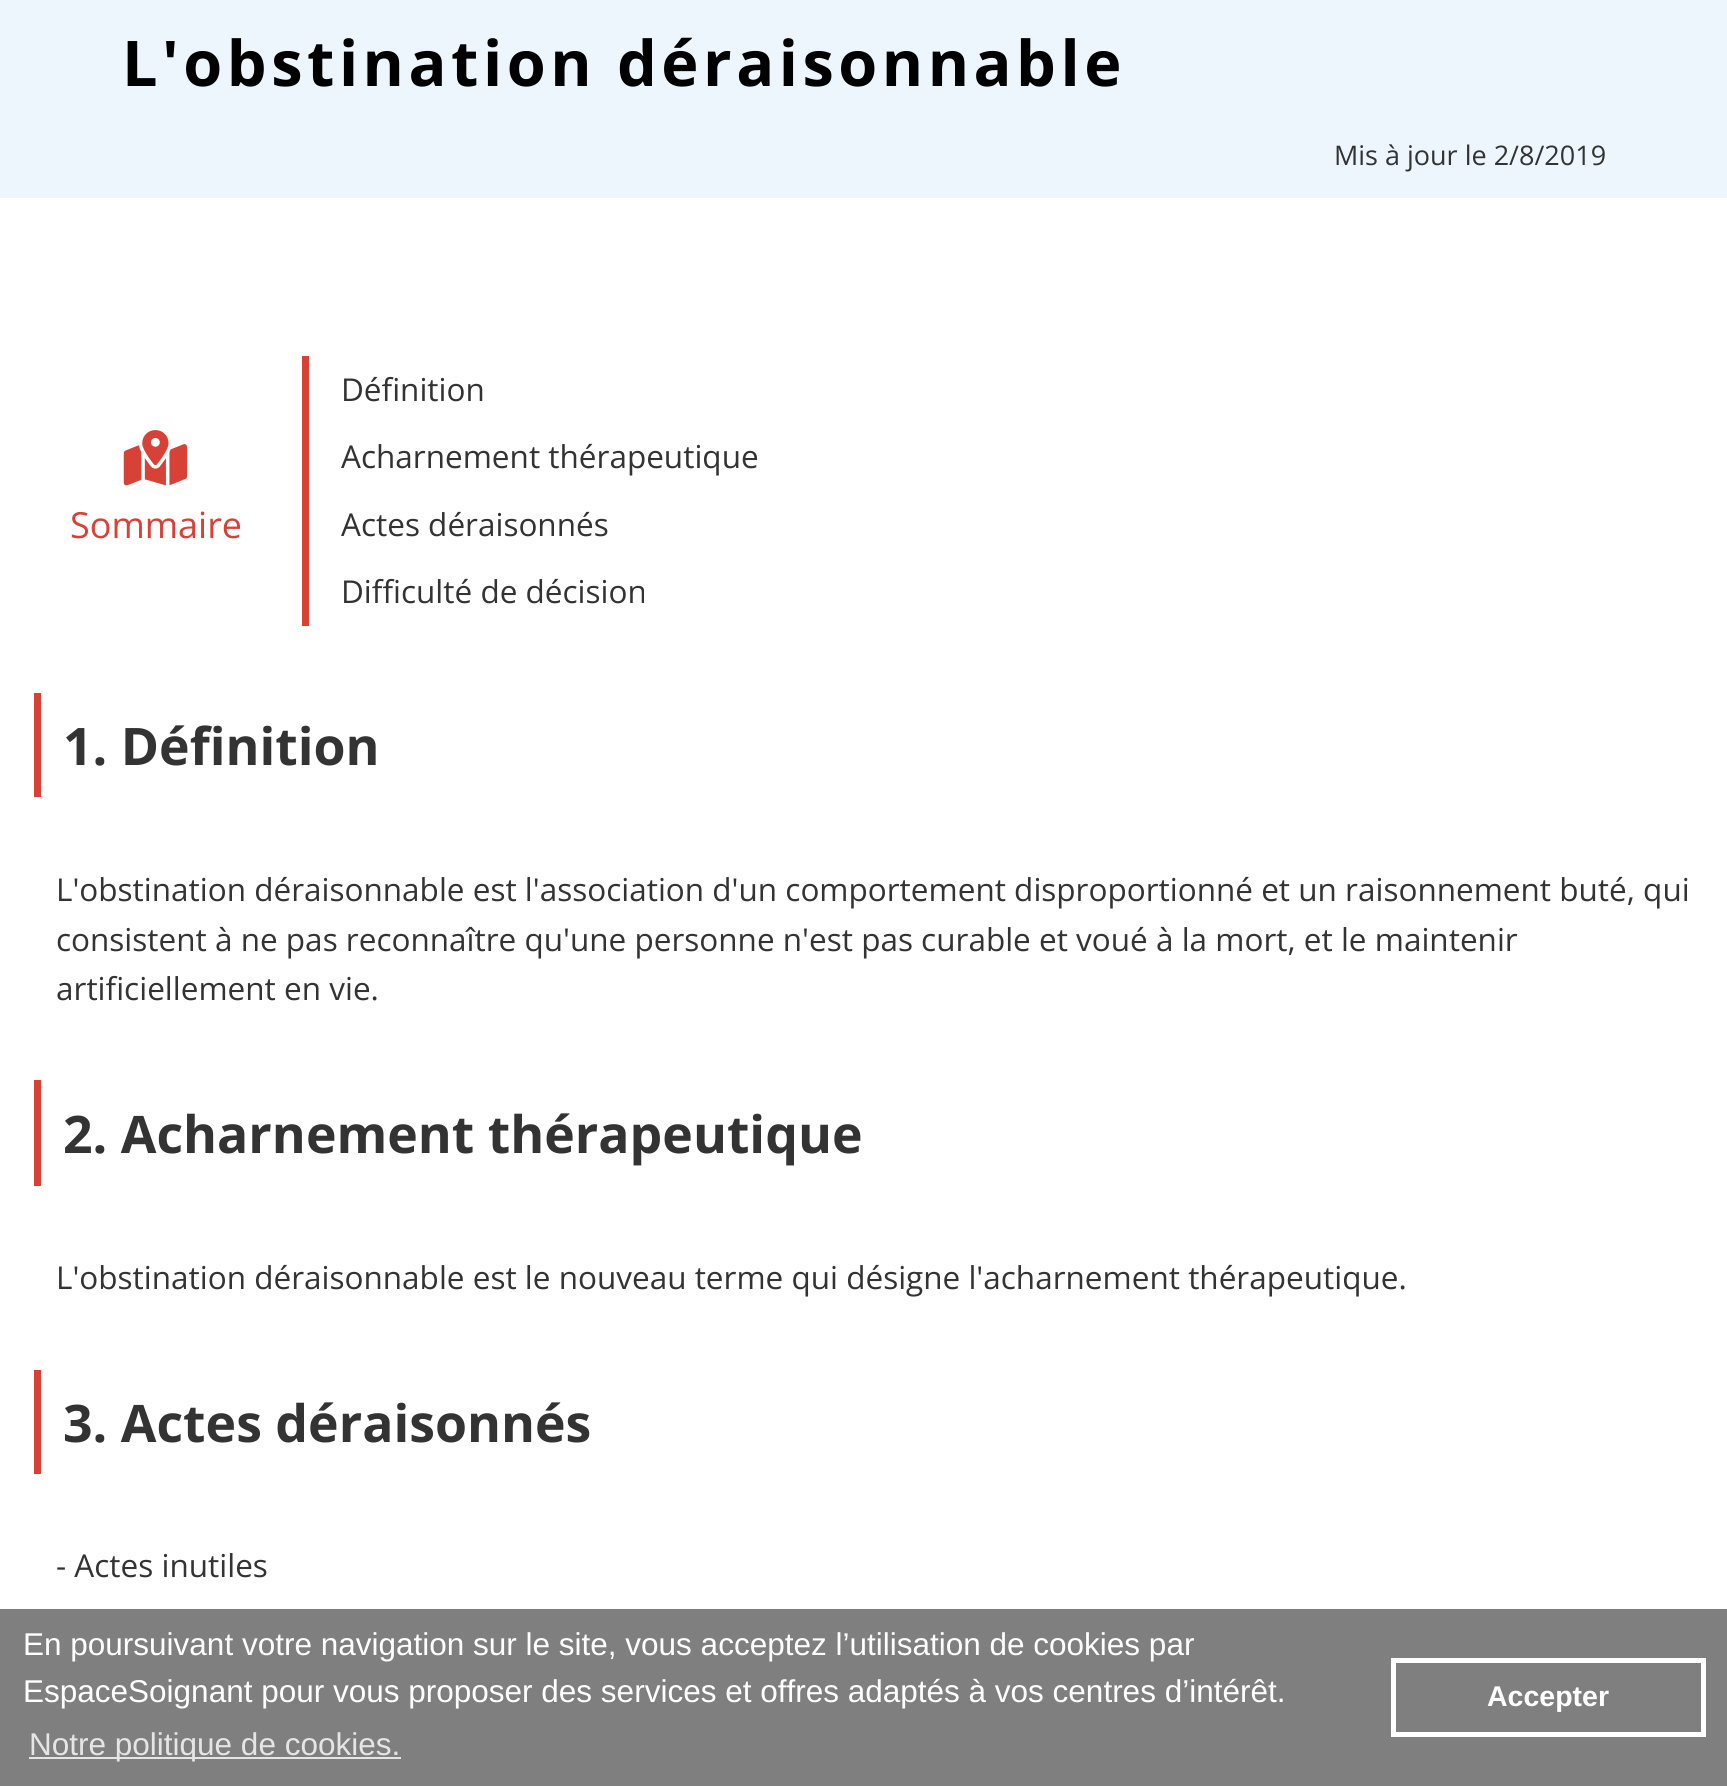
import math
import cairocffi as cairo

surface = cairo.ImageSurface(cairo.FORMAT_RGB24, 1727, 1786)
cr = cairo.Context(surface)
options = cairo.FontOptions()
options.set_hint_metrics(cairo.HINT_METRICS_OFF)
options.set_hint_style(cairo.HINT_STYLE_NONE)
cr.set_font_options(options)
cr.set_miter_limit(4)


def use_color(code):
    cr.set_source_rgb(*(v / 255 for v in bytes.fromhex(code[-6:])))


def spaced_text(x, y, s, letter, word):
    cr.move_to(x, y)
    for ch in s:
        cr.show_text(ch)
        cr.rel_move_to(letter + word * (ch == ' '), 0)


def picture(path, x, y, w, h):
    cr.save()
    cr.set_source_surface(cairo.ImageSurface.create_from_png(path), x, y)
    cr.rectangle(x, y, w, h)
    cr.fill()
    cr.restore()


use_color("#ffffff")
cr.paint()
use_color("#edf6fd")
cr.rectangle(0, 0, 1727, 198)
cr.fill()
cr.select_font_face("Open Sans", cairo.FONT_SLANT_NORMAL, cairo.FONT_WEIGHT_BOLD)
cr.set_font_size(63)
use_color("#000000")
spaced_text(122, 86, "L'obstination déraisonnable", 4.5, 0)
cr.select_font_face("Open Sans")
cr.set_font_size(27)
use_color("#333333")
cr.move_to(1334, 165)
cr.show_text("Mis à jour le 2/8/2019")
picture("img1.png", 123, 430, 65, 56)
cr.set_font_size(36)
use_color("#d84136")
cr.move_to(70, 538)
cr.show_text("Sommaire")
cr.rectangle(302, 356, 7, 270)
cr.fill()
cr.set_font_size(31.5)
use_color("#333333")
cr.move_to(341, 401)
cr.show_text("Définition")
cr.move_to(341, 468)
cr.show_text("Acharnement thérapeutique")
cr.move_to(341, 536)
cr.show_text("Actes déraisonnés")
cr.move_to(341, 603)
cr.show_text("Difficulté de décision")
use_color("#d84136")
cr.rectangle(34, 693, 7, 104)
cr.fill()
cr.select_font_face("Open Sans", cairo.FONT_SLANT_NORMAL, cairo.FONT_WEIGHT_BOLD)
cr.set_font_size(51.75)
use_color("#333333")
cr.move_to(63, 765)
cr.show_text("1. Définition")
cr.select_font_face("Open Sans")
cr.set_font_size(31.5)
cr.move_to(56, 901)
cr.show_text("L'obstination déraisonnable est l'association d'un comportement disproportionné et un raisonnement buté, qui")
cr.move_to(56, 951)
cr.show_text("consistent à ne pas reconnaître qu'une personne n'est pas curable et voué à la mort, et le maintenir")
cr.move_to(56, 1000)
cr.show_text("artificiellement en vie.")
use_color("#d84136")
cr.rectangle(34, 1080, 7, 106)
cr.fill()
cr.select_font_face("Open Sans", cairo.FONT_SLANT_NORMAL, cairo.FONT_WEIGHT_BOLD)
cr.set_font_size(51.75)
use_color("#333333")
cr.move_to(63, 1153)
cr.show_text("2. Acharnement thérapeutique")
cr.select_font_face("Open Sans")
cr.set_font_size(31.5)
cr.move_to(56, 1289)
cr.show_text("L'obstination déraisonnable est le nouveau terme qui désigne l'acharnement thérapeutique.")
use_color("#d84136")
cr.rectangle(34, 1370, 7, 104)
cr.fill()
cr.select_font_face("Open Sans", cairo.FONT_SLANT_NORMAL, cairo.FONT_WEIGHT_BOLD)
cr.set_font_size(51.75)
use_color("#333333")
cr.move_to(63, 1442)
cr.show_text("3. Actes déraisonnés")
cr.select_font_face("Open Sans")
cr.set_font_size(31.5)
cr.move_to(56, 1577)
cr.show_text("- Actes inutiles")
use_color("#7f7f7f")
cr.rectangle(0, 1609, 1727, 177)
cr.fill()
cr.select_font_face("Liberation Sans")
use_color("#ffffff")
cr.move_to(23, 1655)
cr.show_text("En poursuivant votre navigation sur le site, vous acceptez l’utilisation de cookies par")
cr.move_to(23, 1702)
cr.show_text("EspaceSoignant pour vous proposer des services et offres adaptés à vos centres d’intérêt.")
use_color("#e5e5e5")
cr.rectangle(29, 1757, 372, 2)
cr.fill()
cr.move_to(29, 1755)
cr.show_text("Notre politique de cookies.")
cr.rectangle(1393.5, 1660.5, 310, 74)
use_color("#ffffff")
cr.set_line_width(5)
cr.stroke()
cr.select_font_face("Liberation Sans", cairo.FONT_SLANT_NORMAL, cairo.FONT_WEIGHT_BOLD)
cr.set_font_size(28.5)
cr.move_to(1487, 1706)
cr.show_text("Accepter")
surface.write_to_png("result.png")
